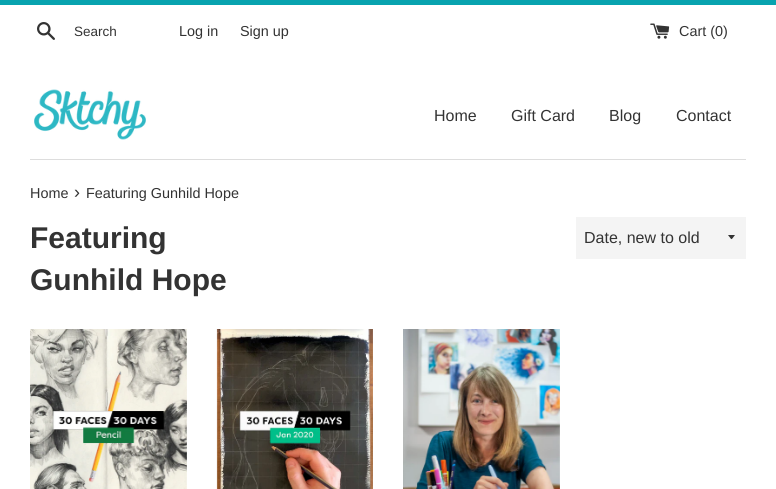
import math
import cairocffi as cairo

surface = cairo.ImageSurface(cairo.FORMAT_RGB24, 776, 489)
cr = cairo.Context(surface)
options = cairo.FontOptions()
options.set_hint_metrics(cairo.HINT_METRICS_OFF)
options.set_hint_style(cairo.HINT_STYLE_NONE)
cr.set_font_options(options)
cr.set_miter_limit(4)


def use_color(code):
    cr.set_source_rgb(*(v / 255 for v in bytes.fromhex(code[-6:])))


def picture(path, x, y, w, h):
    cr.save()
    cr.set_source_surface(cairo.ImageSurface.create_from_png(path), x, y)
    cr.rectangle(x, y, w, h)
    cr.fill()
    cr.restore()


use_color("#ffffff")
cr.paint()
use_color("#08a3af")
cr.rectangle(0, 0, 776, 5)
cr.fill()
picture("img1.png", 37, 22, 18, 18)
cr.select_font_face("Liberation Sans")
cr.set_font_size(13.5)
use_color("#333333")
cr.move_to(74, 36)
cr.show_text("Search")
cr.set_font_size(14.4)
cr.move_to(179, 36)
cr.show_text("Log in")
cr.move_to(240, 36)
cr.show_text("Sign up")
picture("img2.png", 650, 23, 20, 16)
cr.move_to(679, 36)
cr.show_text("Cart (0)")
picture("img3.png", 34, 89, 112, 51)
cr.set_font_size(16)
cr.move_to(434, 121)
cr.show_text("Home")
cr.move_to(511, 121)
cr.show_text("Gift Card")
cr.move_to(609, 121)
cr.show_text("Blog")
cr.move_to(676, 121)
cr.show_text("Contact")
use_color("#dddddd")
cr.rectangle(30, 159, 716, 1)
cr.fill()
cr.set_font_size(14.4)
use_color("#333333")
cr.move_to(30, 198)
cr.show_text("Home")
cr.set_font_size(18)
cr.move_to(74, 198)
cr.show_text("›")
cr.set_font_size(14.4)
cr.move_to(86, 198)
cr.show_text("Featuring Gunhild Hope")
cr.select_font_face("Liberation Sans", cairo.FONT_SLANT_NORMAL, cairo.FONT_WEIGHT_BOLD)
cr.set_font_size(30)
cr.move_to(30, 248)
cr.show_text("Featuring")
cr.move_to(30, 290)
cr.show_text("Gunhild Hope")
use_color("#f4f4f4")
cr.rectangle(576, 217, 170, 42)
cr.fill()
use_color("#333333")
cr.new_path()
cr.move_to(728, 235)
cr.curve_to(732.5, 240.5, 730.5, 240.5, 735, 235)
cr.close_path()
cr.fill()
cr.select_font_face("Liberation Sans")
cr.set_font_size(16)
cr.move_to(584, 243)
cr.show_text("Date, new to old")
picture("img4.png", 30, 329, 157, 160)
picture("img5.png", 216, 329, 157, 160)
picture("img6.png", 403, 329, 157, 160)
surface.write_to_png("result.png")
